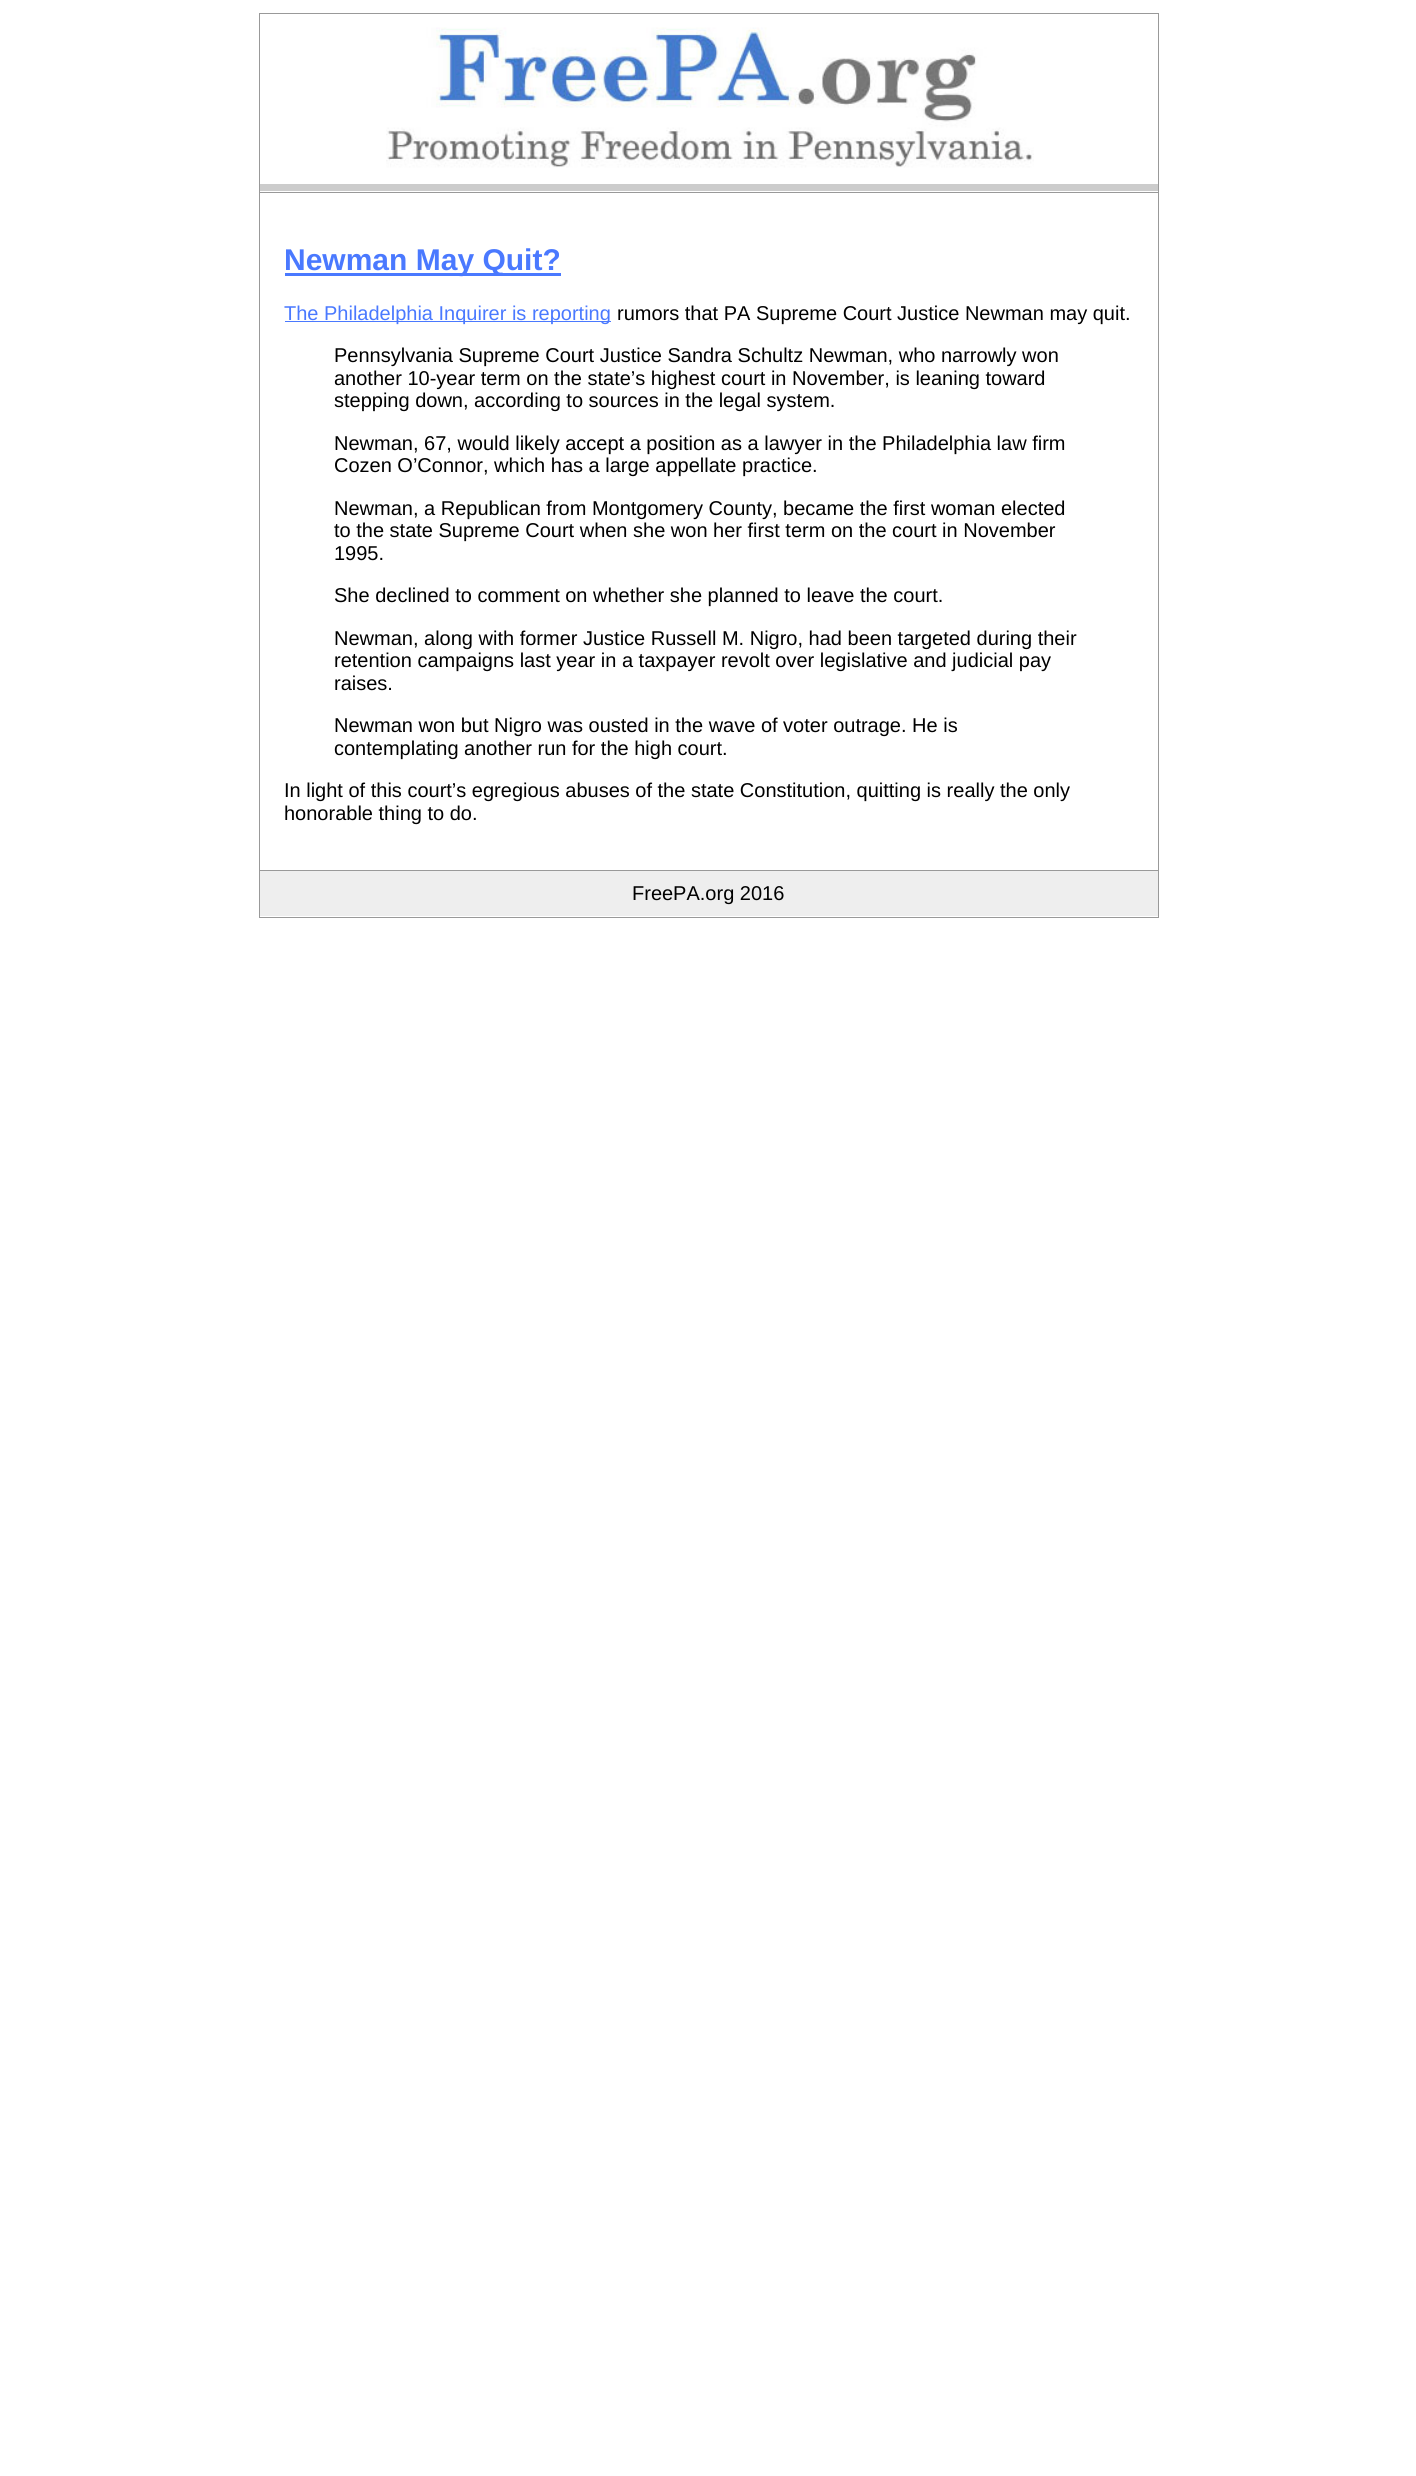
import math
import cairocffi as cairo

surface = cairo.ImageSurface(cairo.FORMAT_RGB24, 1416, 2476)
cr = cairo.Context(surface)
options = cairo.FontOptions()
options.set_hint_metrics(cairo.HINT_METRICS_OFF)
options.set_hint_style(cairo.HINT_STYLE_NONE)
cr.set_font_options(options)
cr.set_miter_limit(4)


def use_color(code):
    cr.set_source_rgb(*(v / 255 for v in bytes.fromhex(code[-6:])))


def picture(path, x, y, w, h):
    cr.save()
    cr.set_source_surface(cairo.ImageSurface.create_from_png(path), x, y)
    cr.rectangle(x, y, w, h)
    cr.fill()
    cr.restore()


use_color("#ffffff")
cr.paint()
cr.rectangle(259.5, 13.5, 899, 179)
use_color("#999999")
cr.set_line_width(1)
cr.stroke()
picture("img1.png", 386, 27, 648, 141)
use_color("#cccccc")
cr.rectangle(260, 184, 898, 7)
cr.fill()
use_color("#999999")
cr.rectangle(1158, 193, 1, 677)
cr.fill()
cr.rectangle(259, 193, 1, 677)
cr.fill()
use_color("#4a79ff")
cr.rectangle(285, 273, 276, 3)
cr.fill()
cr.select_font_face("Liberation Sans", cairo.FONT_SLANT_NORMAL, cairo.FONT_WEIGHT_BOLD)
cr.set_font_size(30)
cr.move_to(284, 270)
cr.show_text("Newman May Quit?")
cr.rectangle(285, 321, 326, 1)
cr.fill()
cr.select_font_face("Liberation Sans")
cr.set_font_size(20)
cr.move_to(284, 320)
cr.show_text("The Philadelphia Inquirer is reporting")
use_color("#000000")
cr.move_to(617, 320)
cr.show_text("rumors that PA Supreme Court Justice Newman may quit.")
cr.move_to(334, 362)
cr.show_text("Pennsylvania Supreme Court Justice Sandra Schultz Newman, who narrowly won")
cr.move_to(334, 385)
cr.show_text("another 10-year term on the state’s highest court in November, is leaning toward")
cr.move_to(334, 407)
cr.show_text("stepping down, according to sources in the legal system.")
cr.move_to(334, 450)
cr.show_text("Newman, 67, would likely accept a position as a lawyer in the Philadelphia law firm")
cr.move_to(334, 472)
cr.show_text("Cozen O’Connor, which has a large appellate practice.")
cr.move_to(334, 515)
cr.show_text("Newman, a Republican from Montgomery County, became the first woman elected")
cr.move_to(334, 537)
cr.show_text("to the state Supreme Court when she won her first term on the court in November")
cr.move_to(334, 560)
cr.show_text("1995.")
cr.move_to(334, 602)
cr.show_text("She declined to comment on whether she planned to leave the court.")
cr.move_to(334, 645)
cr.show_text("Newman, along with former Justice Russell M. Nigro, had been targeted during their")
cr.move_to(334, 667)
cr.show_text("retention campaigns last year in a taxpayer revolt over legislative and judicial pay")
cr.move_to(334, 690)
cr.show_text("raises.")
cr.move_to(334, 732)
cr.show_text("Newman won but Nigro was ousted in the wave of voter outrage. He is")
cr.move_to(334, 755)
cr.show_text("contemplating another run for the high court.")
cr.move_to(284, 797)
cr.show_text("In light of this court’s egregious abuses of the state Constitution, quitting is really the only")
cr.move_to(284, 820)
cr.show_text("honorable thing to do.")
cr.rectangle(259.5, 870.5, 899, 47)
use_color("#999999")
cr.stroke()
use_color("#eeeeee")
cr.rectangle(260, 871, 898, 45)
cr.fill()
use_color("#000000")
cr.move_to(632, 900)
cr.show_text("FreePA.org 2016")
surface.write_to_png("result.png")
